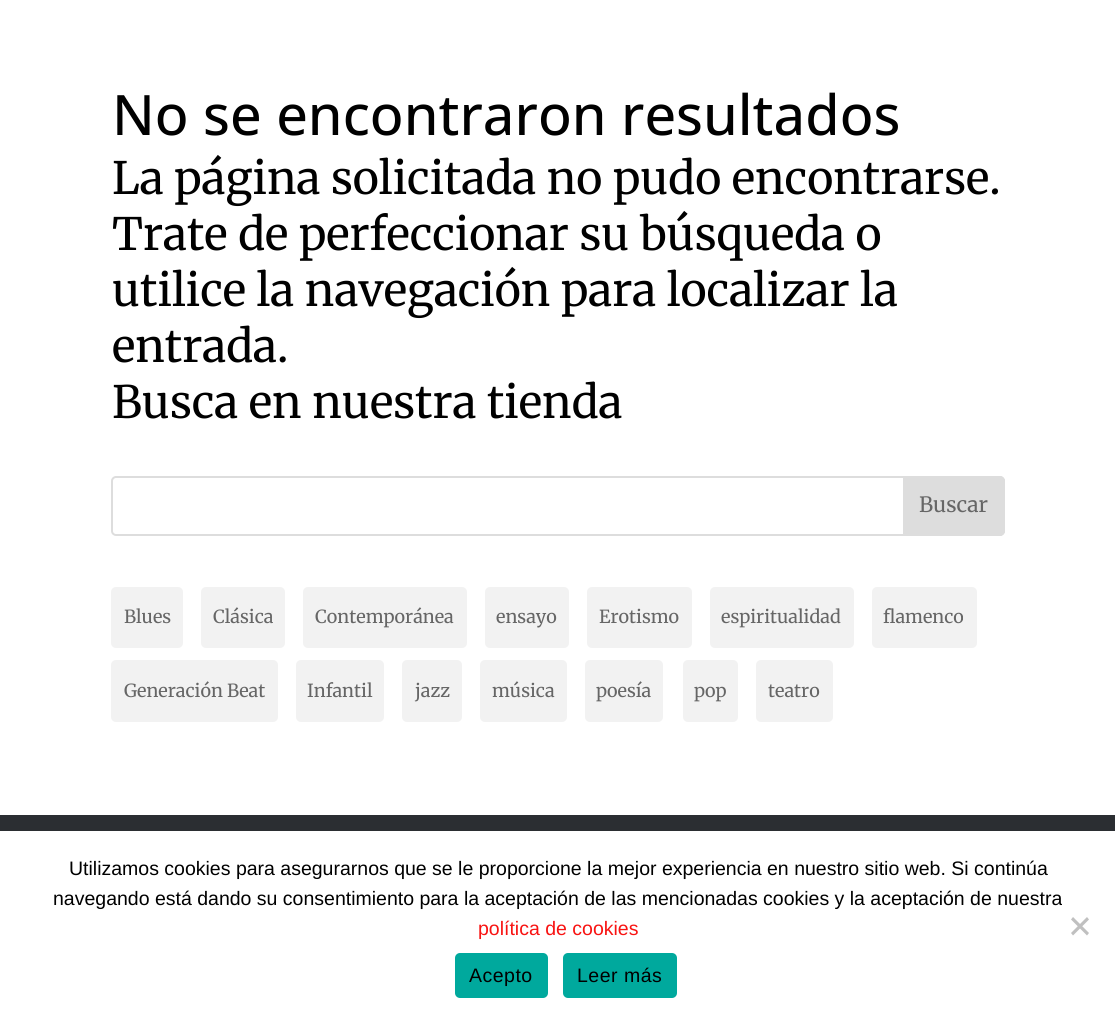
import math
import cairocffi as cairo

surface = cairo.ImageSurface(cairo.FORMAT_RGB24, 1115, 1020)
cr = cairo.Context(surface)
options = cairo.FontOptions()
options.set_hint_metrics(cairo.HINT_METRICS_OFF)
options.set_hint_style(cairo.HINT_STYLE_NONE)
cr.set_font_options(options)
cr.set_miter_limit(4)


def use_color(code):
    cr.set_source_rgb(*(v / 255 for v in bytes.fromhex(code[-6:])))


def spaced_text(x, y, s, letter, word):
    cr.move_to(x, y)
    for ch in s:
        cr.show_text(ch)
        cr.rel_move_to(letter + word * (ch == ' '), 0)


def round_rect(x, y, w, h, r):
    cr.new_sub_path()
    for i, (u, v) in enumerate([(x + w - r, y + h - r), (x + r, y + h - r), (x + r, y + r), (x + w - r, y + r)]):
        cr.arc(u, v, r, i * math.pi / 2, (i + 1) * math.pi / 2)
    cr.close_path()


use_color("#ffffff")
cr.paint()
cr.select_font_face("Open Sans Medium")
cr.set_font_size(55.75)
use_color("#000000")
cr.move_to(112, 135)
cr.show_text("No se encontraron resultados")
cr.select_font_face("Merriweather")
cr.set_font_size(44.6)
cr.move_to(112, 194)
cr.show_text("La página solicitada no pudo encontrarse.")
cr.move_to(112, 250)
cr.show_text("Trate de perfeccionar su búsqueda o")
cr.move_to(112, 306)
cr.show_text("utilice la navegación para localizar la")
cr.move_to(112, 362)
cr.show_text("entrada.")
cr.move_to(112, 418)
cr.show_text("Busca en nuestra tienda")
round_rect(112, 477, 892, 58, 4)
use_color("#dddddd")
cr.stroke()
cr.new_path()
cr.move_to(904, 477)
cr.line_to(1000, 477)
cr.curve_to(1002, 477, 1004, 479, 1004, 481)
cr.line_to(1004, 531)
cr.curve_to(1004, 533, 1002, 535, 1000, 535)
cr.line_to(904, 535)
cr.close_path()
cr.fill_preserve()
cr.stroke()
cr.set_font_size(21)
use_color("#666666")
cr.move_to(919, 512)
cr.show_text("Buscar")
use_color("#f2f2f2")
round_rect(111, 587, 72, 61, 5)
cr.fill()
cr.set_font_size(18)
use_color("#666666")
cr.move_to(124, 623)
cr.show_text("Blues")
use_color("#f2f2f2")
round_rect(201, 587, 84, 61, 5)
cr.fill()
use_color("#666666")
cr.move_to(213, 623)
cr.show_text("Clásica")
use_color("#f2f2f2")
round_rect(303, 587, 164, 61, 5)
cr.fill()
use_color("#666666")
cr.move_to(315, 623)
cr.show_text("Contemporánea")
use_color("#f2f2f2")
round_rect(485, 587, 84, 61, 5)
cr.fill()
use_color("#666666")
cr.move_to(496, 623)
cr.show_text("ensayo")
use_color("#f2f2f2")
round_rect(587, 587, 105, 61, 5)
cr.fill()
use_color("#666666")
cr.move_to(599, 623)
cr.show_text("Erotismo")
use_color("#f2f2f2")
round_rect(710, 587, 144, 61, 5)
cr.fill()
use_color("#666666")
cr.move_to(721, 623)
cr.show_text("espiritualidad")
use_color("#f2f2f2")
round_rect(872, 587, 105, 61, 5)
cr.fill()
use_color("#666666")
cr.move_to(883, 623)
cr.show_text("flamenco")
use_color("#f2f2f2")
round_rect(111, 660, 167, 62, 5)
cr.fill()
use_color("#666666")
cr.move_to(124, 697)
cr.show_text("Generación Beat")
use_color("#f2f2f2")
round_rect(296, 660, 88, 62, 5)
cr.fill()
use_color("#666666")
cr.move_to(307, 697)
cr.show_text("Infantil")
use_color("#f2f2f2")
round_rect(402, 660, 60, 62, 5)
cr.fill()
use_color("#666666")
cr.move_to(415, 697)
cr.show_text("jazz")
use_color("#f2f2f2")
round_rect(480, 660, 87, 62, 5)
cr.fill()
use_color("#666666")
cr.move_to(492, 697)
cr.show_text("música")
use_color("#f2f2f2")
round_rect(585, 660, 78, 62, 5)
cr.fill()
use_color("#666666")
cr.move_to(596, 697)
cr.show_text("poesía")
use_color("#f2f2f2")
round_rect(683, 660, 55, 62, 5)
cr.fill()
use_color("#666666")
cr.move_to(694, 697)
cr.show_text("pop")
use_color("#f2f2f2")
round_rect(756, 660, 77, 62, 5)
cr.fill()
use_color("#666666")
cr.move_to(768, 697)
cr.show_text("teatro")
use_color("#2b2e32")
cr.rectangle(0, 815, 1115, 16)
cr.fill()
cr.select_font_face("Liberation Sans")
cr.set_font_size(19.5)
use_color("#000000")
cr.move_to(69, 875)
cr.show_text("Utilizamos cookies para asegurarnos que se le proporcione la mejor experiencia en nuestro sitio web. Si continúa")
cr.move_to(53, 905)
cr.show_text("navegando está dando su consentimiento para la aceptación de las mencionadas cookies y la aceptación de nuestra")
use_color("#f81312")
cr.move_to(478, 935)
cr.show_text("política de cookies")
use_color("#c0c0c0")
cr.new_path()
cr.move_to(1087, 917)
cr.line_to(1089, 919.5)
cr.line_to(1073, 935.5)
cr.line_to(1071, 933)
cr.close_path()
cr.fill()
cr.new_path()
cr.move_to(1071, 919.5)
cr.line_to(1073, 917)
cr.line_to(1089, 933)
cr.line_to(1087, 935.5)
cr.close_path()
cr.fill()
use_color("#00a99d")
round_rect(455, 953, 93, 45, 5)
cr.fill()
use_color("#000000")
spaced_text(469, 982, "Acepto", 0.5, 0)
use_color("#00a99d")
round_rect(563, 953, 114, 45, 5)
cr.fill()
use_color("#000000")
spaced_text(577, 982, "Leer más", 0.5, 0)
surface.write_to_png("result.png")
